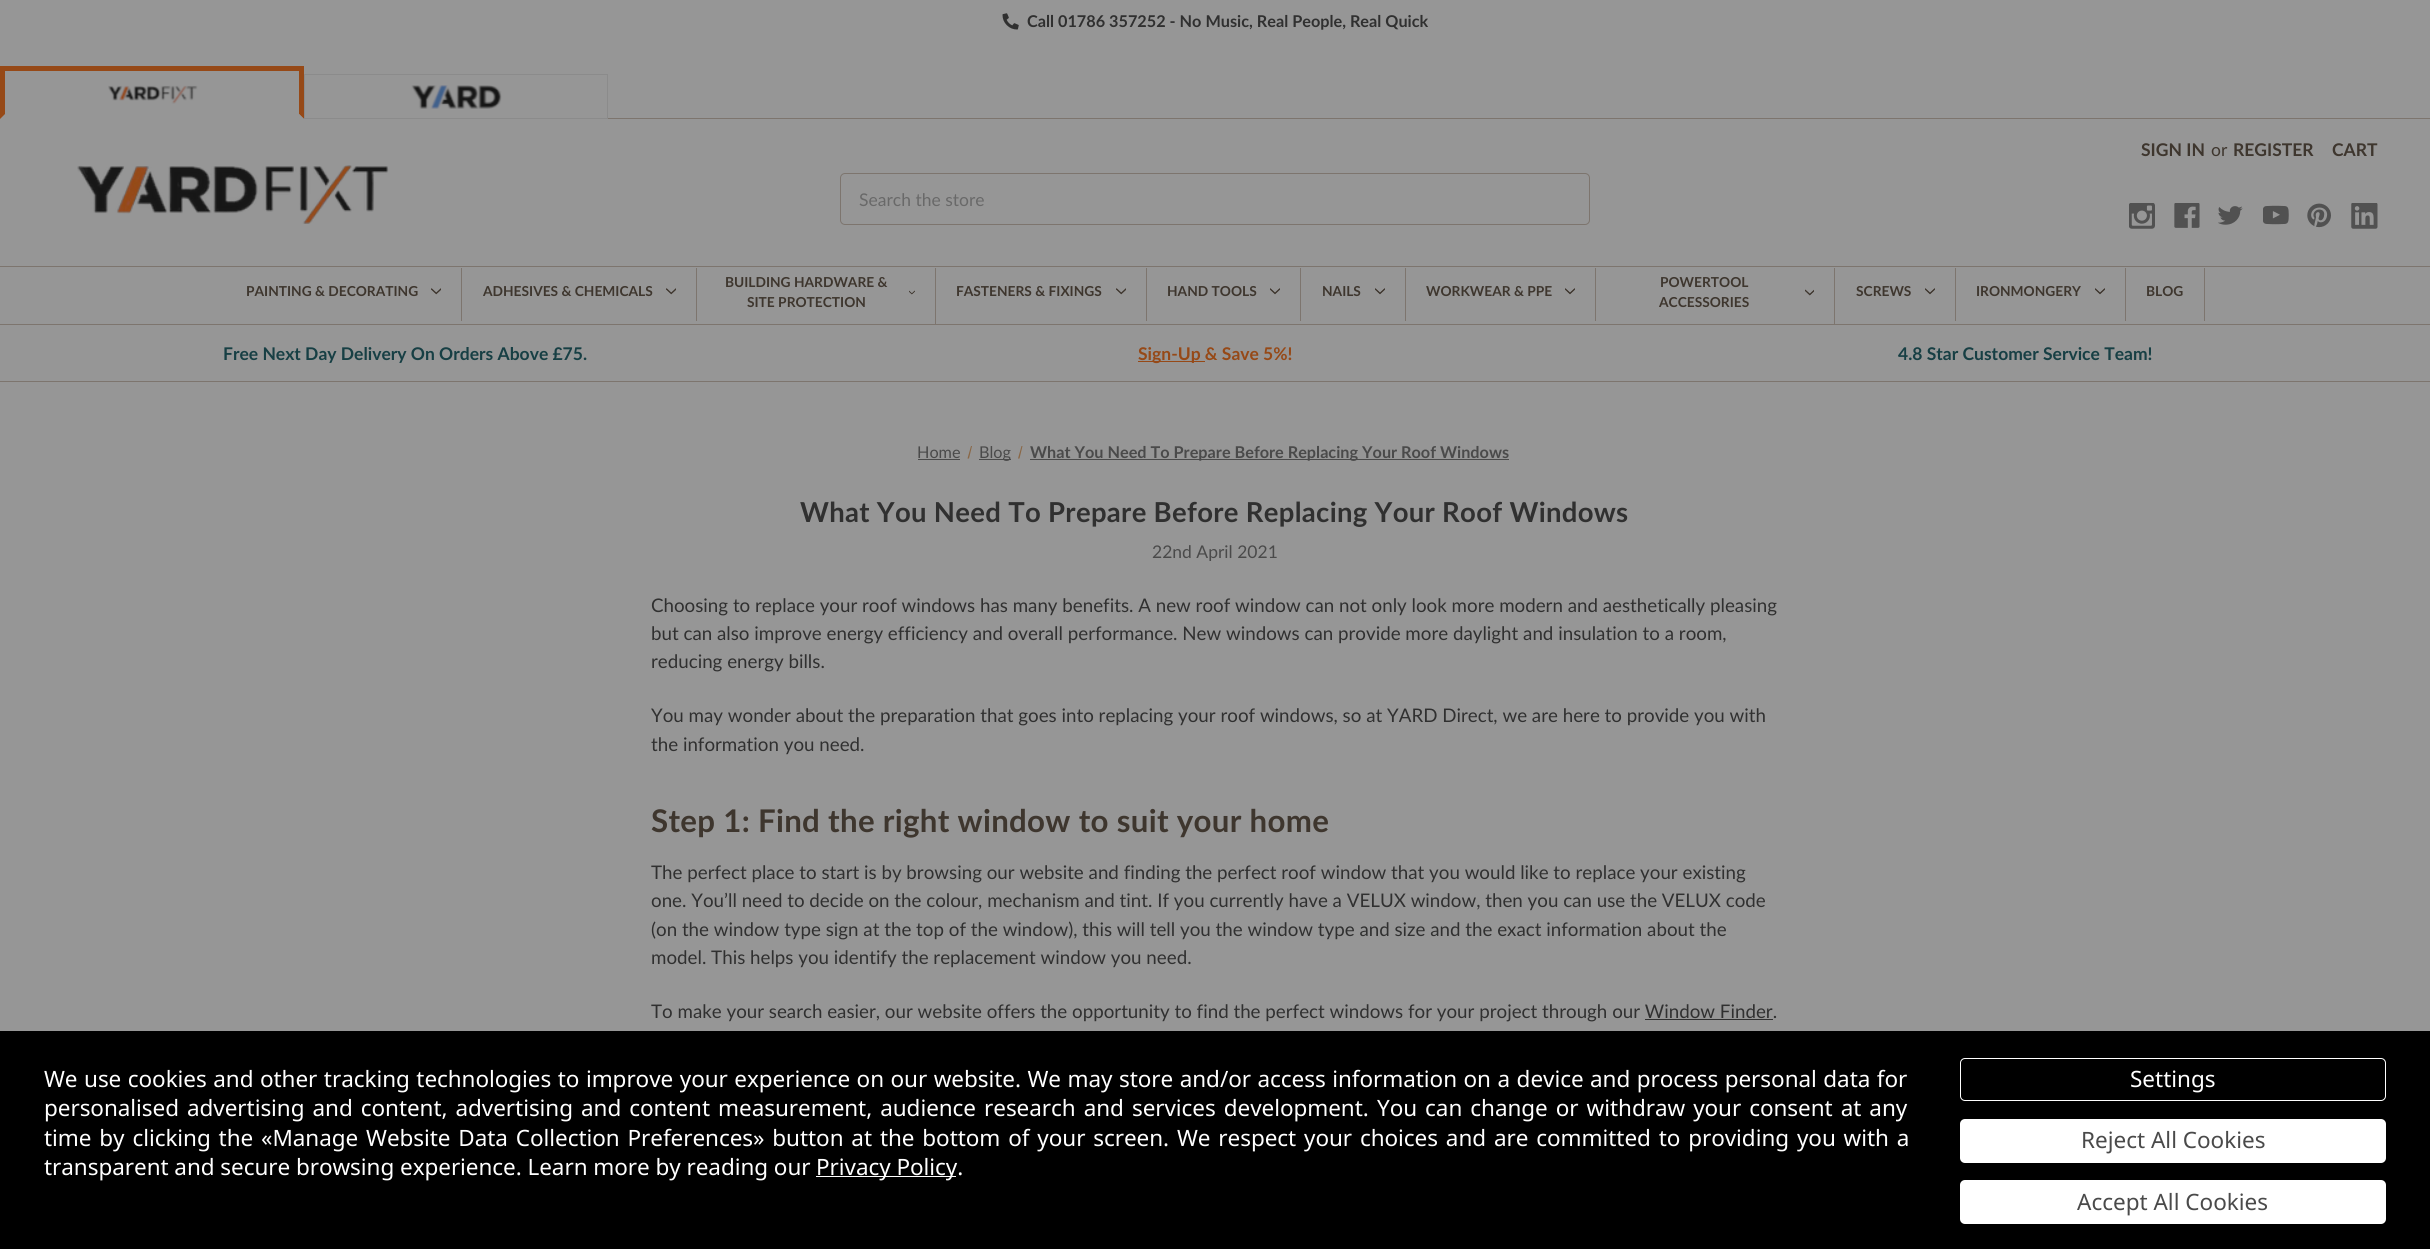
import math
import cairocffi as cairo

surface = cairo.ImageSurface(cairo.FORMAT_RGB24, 2430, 1249)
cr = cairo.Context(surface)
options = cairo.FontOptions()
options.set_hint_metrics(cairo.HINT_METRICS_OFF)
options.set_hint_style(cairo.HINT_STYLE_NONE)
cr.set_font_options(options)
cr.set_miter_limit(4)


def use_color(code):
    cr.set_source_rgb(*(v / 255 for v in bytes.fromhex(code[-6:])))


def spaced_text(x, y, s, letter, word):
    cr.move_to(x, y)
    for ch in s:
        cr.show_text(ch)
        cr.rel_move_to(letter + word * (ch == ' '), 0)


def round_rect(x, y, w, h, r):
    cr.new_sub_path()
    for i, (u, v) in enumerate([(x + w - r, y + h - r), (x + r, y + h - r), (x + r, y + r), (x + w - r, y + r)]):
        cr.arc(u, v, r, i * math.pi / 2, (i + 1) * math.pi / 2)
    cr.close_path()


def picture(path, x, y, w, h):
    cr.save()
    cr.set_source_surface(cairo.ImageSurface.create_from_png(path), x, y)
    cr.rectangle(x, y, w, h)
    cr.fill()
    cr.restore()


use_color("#969696")
cr.paint()
use_color("#7d756e")
cr.rectangle(0, 381, 2430, 1)
cr.fill()
picture("img1.png", 1002, 13, 17, 17)
cr.select_font_face("Lato", cairo.FONT_SLANT_NORMAL, cairo.FONT_WEIGHT_BOLD)
cr.set_font_size(16.25)
use_color("#303030")
cr.move_to(1027, 27)
cr.show_text("Call 01786 357252 - No Music, Real People, Real Quick")
use_color("#7d756e")
cr.rectangle(608, 118, 1822, 1)
cr.fill()
use_color("#964917")
cr.rectangle(0, 66, 304, 5)
cr.fill()
cr.new_path()
cr.move_to(304, 66)
cr.line_to(304, 119)
cr.line_to(299, 114)
cr.line_to(299, 71)
cr.close_path()
cr.fill()
use_color("#969696")
cr.new_path()
cr.move_to(304, 119)
cr.line_to(0, 119)
cr.line_to(5, 114)
cr.line_to(299, 114)
cr.close_path()
cr.fill()
use_color("#964917")
cr.new_path()
cr.move_to(0, 119)
cr.line_to(0, 66)
cr.line_to(5, 71)
cr.line_to(5, 114)
cr.close_path()
cr.fill()
picture("img2.png", 108, 85, 90, 19)
cr.rectangle(304.5, 74.5, 303, 44)
use_color("#8b8b8b")
cr.set_line_width(1)
cr.stroke()
picture("img3.png", 411, 85, 91, 24)
use_color("#7d756e")
cr.rectangle(0, 266, 2430, 1)
cr.fill()
cr.set_font_size(17.5)
use_color("#3e362e")
cr.move_to(2141, 156)
cr.show_text("SIGN IN")
cr.select_font_face("Lato")
cr.move_to(2211, 156)
cr.show_text("or")
cr.select_font_face("Lato", cairo.FONT_SLANT_NORMAL, cairo.FONT_WEIGHT_BOLD)
cr.move_to(2233, 156)
cr.show_text("REGISTER")
cr.move_to(2332, 156)
cr.show_text("CART")
picture("img4.png", 2129, 203, 26, 26)
picture("img5.png", 2174, 203, 26, 25)
picture("img6.png", 2218, 206, 25, 19)
picture("img7.png", 2263, 205, 26, 20)
picture("img8.png", 2307, 203, 24, 25)
picture("img9.png", 2351, 203, 27, 26)
picture("img10.png", 77, 165, 312, 59)
round_rect(840.5, 173.5, 749, 51, 4.5)
use_color("#7d756e")
cr.stroke()
cr.select_font_face("Lato")
use_color("#696969")
cr.move_to(859, 206)
cr.show_text("Search the store")
use_color("#7d756e")
cr.rectangle(0, 324, 2430, 1)
cr.fill()
cr.rectangle(461, 268, 1, 53)
cr.fill()
cr.select_font_face("Lato", cairo.FONT_SLANT_NORMAL, cairo.FONT_WEIGHT_BOLD)
cr.set_font_size(13.75)
use_color("#3e362e")
cr.move_to(246, 296)
cr.show_text("PAINTING & DECORATING")
picture("img11.png", 431, 288, 10, 7)
use_color("#7d756e")
cr.rectangle(696, 268, 1, 53)
cr.fill()
use_color("#3e362e")
cr.move_to(483, 296)
cr.show_text("ADHESIVES & CHEMICALS")
picture("img11.png", 666, 288, 10, 7)
use_color("#7d756e")
cr.rectangle(935, 268, 1, 56)
cr.fill()
use_color("#3e362e")
cr.move_to(725, 287)
cr.show_text("BUILDING HARDWARE &")
picture("img12.png", 909, 290, 6, 5)
cr.move_to(747, 307)
cr.show_text("SITE PROTECTION")
use_color("#7d756e")
cr.rectangle(1146, 268, 1, 53)
cr.fill()
use_color("#3e362e")
cr.move_to(956, 296)
cr.show_text("FASTENERS & FIXINGS")
picture("img11.png", 1116, 288, 10, 7)
use_color("#7d756e")
cr.rectangle(1300, 268, 1, 53)
cr.fill()
use_color("#3e362e")
cr.move_to(1167, 296)
cr.show_text("HAND TOOLS")
picture("img13.png", 1270, 288, 10, 7)
use_color("#7d756e")
cr.rectangle(1405, 268, 1, 53)
cr.fill()
use_color("#3e362e")
cr.move_to(1322, 296)
cr.show_text("NAILS")
picture("img13.png", 1375, 288, 10, 7)
use_color("#7d756e")
cr.rectangle(1595, 268, 1, 53)
cr.fill()
use_color("#3e362e")
cr.move_to(1426, 296)
cr.show_text("WORKWEAR & PPE")
picture("img13.png", 1565, 288, 10, 7)
use_color("#7d756e")
cr.rectangle(1834, 268, 1, 56)
cr.fill()
use_color("#3e362e")
cr.move_to(1660, 287)
cr.show_text("POWERTOOL")
picture("img14.png", 1805, 289, 9, 7)
cr.move_to(1659, 307)
cr.show_text("ACCESSORIES")
use_color("#7d756e")
cr.rectangle(1955, 268, 1, 53)
cr.fill()
use_color("#3e362e")
cr.move_to(1856, 296)
cr.show_text("SCREWS")
picture("img13.png", 1925, 288, 10, 7)
use_color("#7d756e")
cr.rectangle(2125, 268, 1, 53)
cr.fill()
use_color("#3e362e")
cr.move_to(1976, 296)
cr.show_text("IRONMONGERY")
picture("img13.png", 2095, 288, 10, 7)
use_color("#7d756e")
cr.rectangle(2204, 268, 1, 53)
cr.fill()
use_color("#3e362e")
cr.move_to(2146, 296)
cr.show_text("BLOG")
cr.set_font_size(17.5)
use_color("#173f44")
cr.move_to(223, 360)
cr.show_text("Free Next Day Delivery On Orders Above £75.")
use_color("#964917")
cr.rectangle(1138, 361, 67, 1)
cr.fill()
cr.move_to(1138, 360)
cr.show_text("Sign-Up & Save 5%!")
use_color("#173f44")
cr.move_to(1898, 360)
cr.show_text("4.8 Star Customer Service Team!")
cr.select_font_face("Lato")
cr.set_font_size(16.25)
use_color("#4a4a4a")
cr.move_to(917, 458)
cr.show_text("Home")
cr.rectangle(918, 459, 42, 1)
cr.fill()
cr.rectangle(979, 459, 32, 1)
cr.fill()
cr.move_to(979, 458)
cr.show_text("Blog")
use_color("#8a6745")
cr.new_path()
cr.move_to(971, 446)
cr.line_to(972, 446)
cr.line_to(969, 458.5)
cr.line_to(967.5, 458.5)
cr.close_path()
cr.move_to(1021.5, 446)
cr.line_to(1022.5, 446)
cr.line_to(1019.5, 458.5)
cr.line_to(1018, 458.5)
cr.close_path()
cr.fill()
use_color("#4a4a4a")
cr.rectangle(1030, 459, 479, 1)
cr.fill()
cr.select_font_face("Lato", cairo.FONT_SLANT_NORMAL, cairo.FONT_WEIGHT_BOLD)
cr.move_to(1030, 458)
cr.show_text("What You Need To Prepare Before Replacing Your Roof Windows")
cr.set_font_size(27.5)
use_color("#303030")
spaced_text(800, 522, "What You Need To Prepare Before Replacing Your Roof Windows", 0.3, 0)
cr.select_font_face("Lato")
cr.set_font_size(17.5)
use_color("#4a4a4a")
cr.move_to(1152, 558)
cr.show_text("22nd April 2021")
cr.set_font_size(18.75)
use_color("#303030")
cr.move_to(651, 612)
cr.show_text("Choosing to replace your roof windows has many benefits. A new roof window can not only look more modern and aesthetically pleasing")
cr.move_to(651, 640)
cr.show_text("but can also improve energy efficiency and overall performance. New windows can provide more daylight and insulation to a room,")
cr.move_to(651, 668)
cr.show_text("reducing energy bills.")
cr.move_to(651, 722)
cr.show_text("You may wonder about the preparation that goes into replacing your roof windows, so at YARD Direct, we are here to provide you with")
cr.move_to(651, 751)
cr.show_text("the information you need.")
cr.select_font_face("Lato", cairo.FONT_SLANT_NORMAL, cairo.FONT_WEIGHT_BOLD)
cr.set_font_size(31.25)
use_color("#3e362e")
spaced_text(651, 832, "Step 1: Find the right window to suit your home", 0.3, 0)
cr.select_font_face("Lato")
cr.set_font_size(18.75)
use_color("#303030")
cr.move_to(651, 879)
cr.show_text("The perfect place to start is by browsing our website and finding the perfect roof window that you would like to replace your existing")
cr.move_to(651, 907)
cr.show_text("one. You’ll need to decide on the colour, mechanism and tint. If you currently have a VELUX window, then you can use the VELUX code")
cr.move_to(651, 936)
cr.show_text("(on the window type sign at the top of the window), this will tell you the window type and size and the exact information about the")
cr.move_to(651, 964)
cr.show_text("model. This helps you identify the replacement window you need.")
cr.move_to(651, 1018)
cr.show_text("To make your search easier, our website offers the opportunity to find the perfect windows for your project through our Window Finder.")
cr.rectangle(1645, 1019, 128, 1)
cr.fill()
use_color("#000000")
cr.rectangle(0, 1031, 2430, 218)
cr.fill()
cr.select_font_face("Noto Sans")
cr.set_font_size(22.5)
use_color("#ffffff")
spaced_text(44, 1087, "We use cookies and other tracking technologies to improve your experience on our website. We may store and/or access information on a device and process personal data for", -0.06, 0.75)
spaced_text(44, 1116, "personalised advertising and content, advertising and content measurement, audience research and services development.", -0.06, 2.25)
spaced_text(1377, 1116, "You can change or withdraw your consent at any", -0.06, 2.25)
spaced_text(44, 1146, "time by clicking the «Manage Website Data Collection Preferences» button at the bottom of your screen. We respect your choices and are committed to providing you with a", -0.06, 2.1)
spaced_text(44, 1175, "transparent and secure browsing experience. Learn more by reading our", -0.06, 0)
cr.rectangle(816, 1176, 140, 1)
cr.fill()
spaced_text(816, 1175, "Privacy Policy.", -0.06, 0)
round_rect(1960.5, 1058.5, 425, 42, 4.5)
cr.stroke()
cr.move_to(2130, 1087)
cr.show_text("Settings")
round_rect(1960, 1119, 426, 44, 5)
cr.fill()
use_color("#4a4a4a")
cr.move_to(2081, 1148)
cr.show_text("Reject All Cookies")
use_color("#ffffff")
round_rect(1960, 1180, 426, 44, 5)
cr.fill()
use_color("#4a4a4a")
cr.move_to(2077, 1210)
cr.show_text("Accept All Cookies")
surface.write_to_png("result.png")
